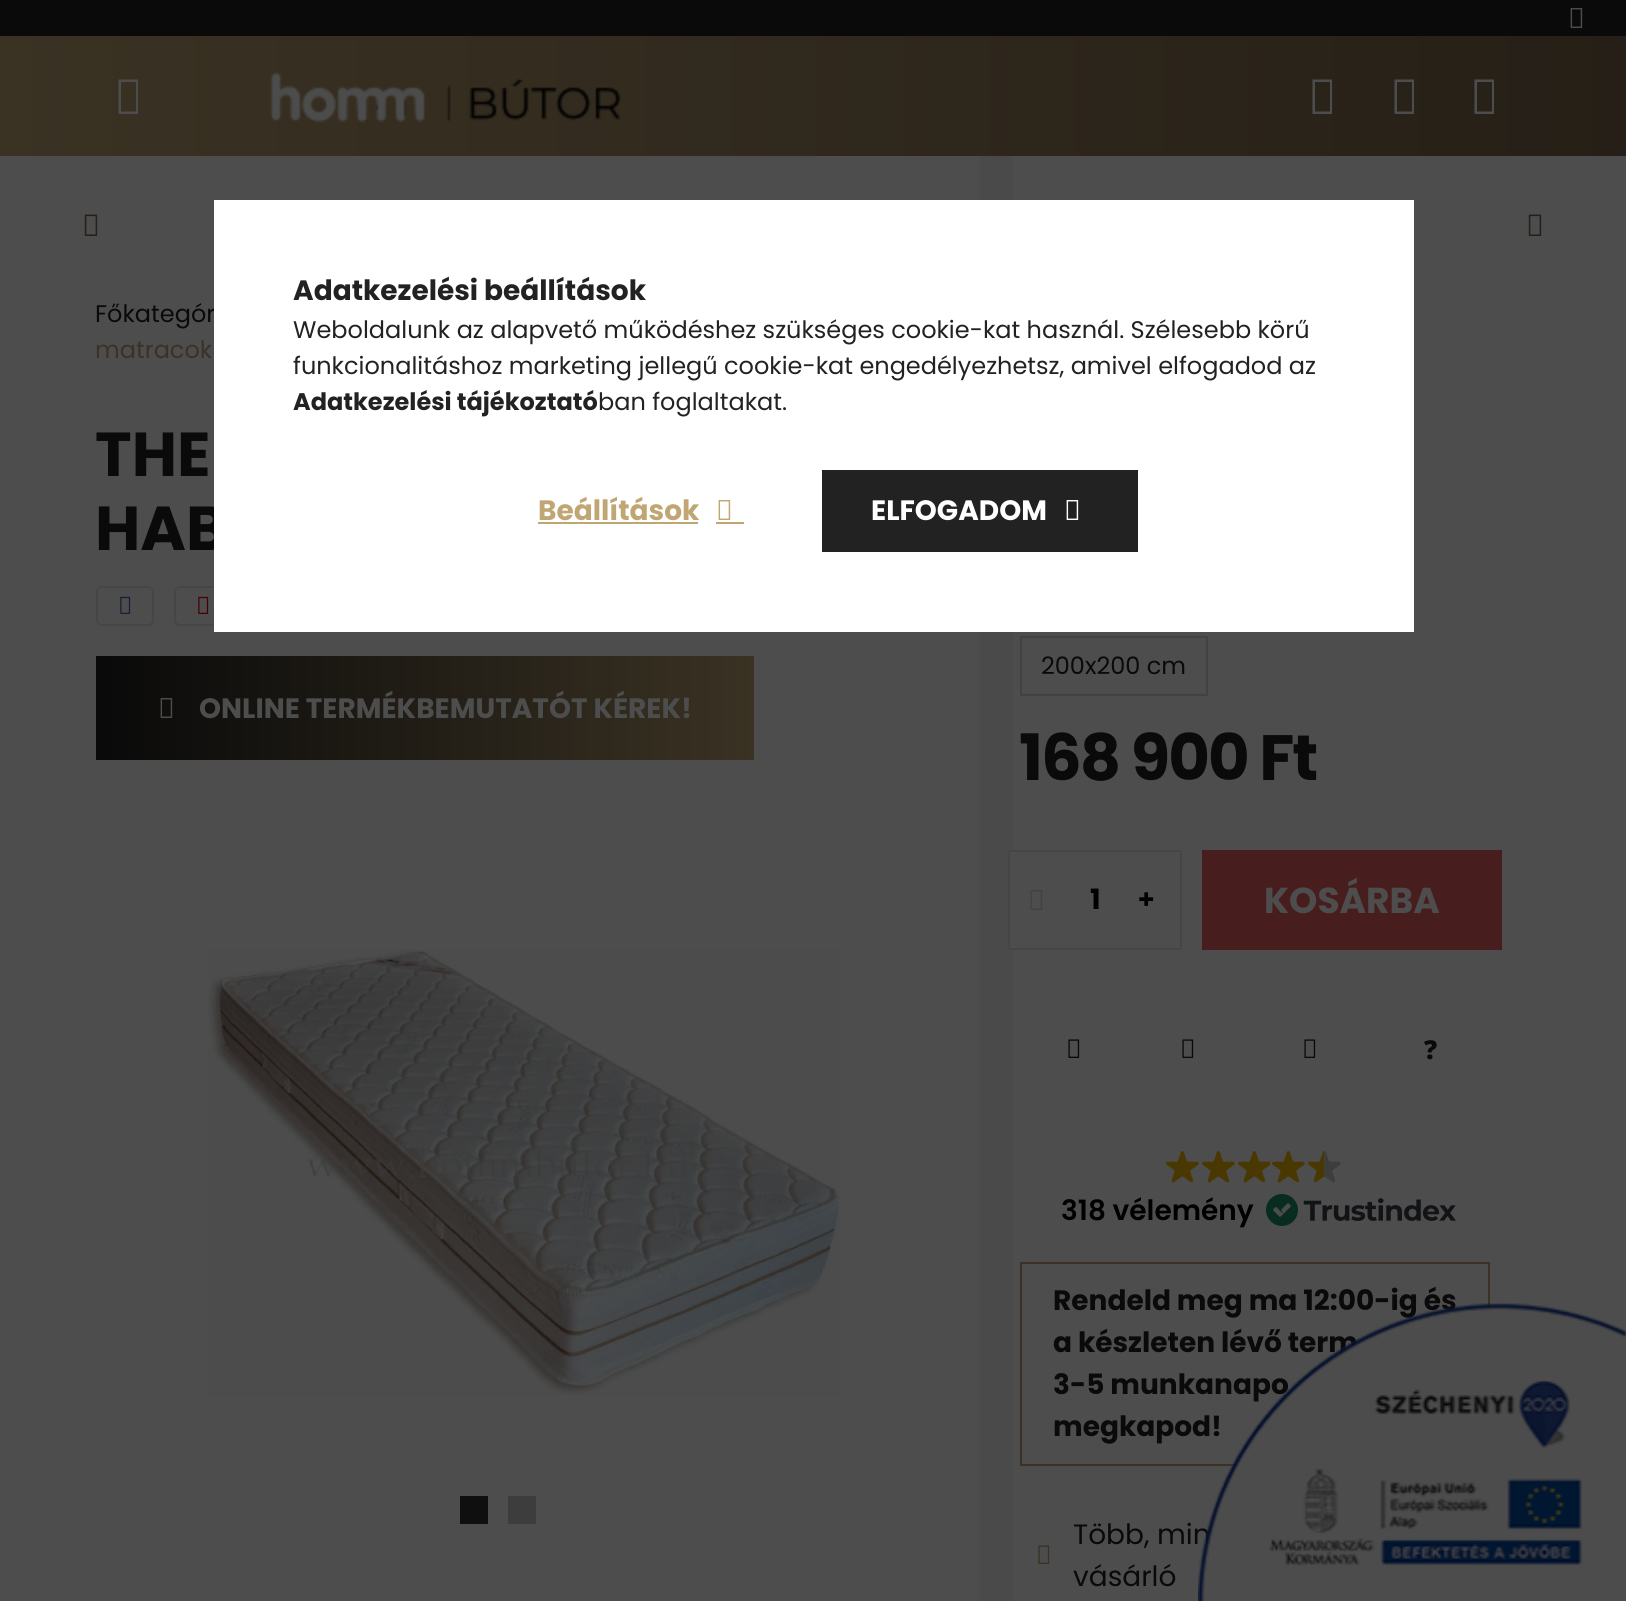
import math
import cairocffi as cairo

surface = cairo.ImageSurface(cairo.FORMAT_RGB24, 1626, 1601)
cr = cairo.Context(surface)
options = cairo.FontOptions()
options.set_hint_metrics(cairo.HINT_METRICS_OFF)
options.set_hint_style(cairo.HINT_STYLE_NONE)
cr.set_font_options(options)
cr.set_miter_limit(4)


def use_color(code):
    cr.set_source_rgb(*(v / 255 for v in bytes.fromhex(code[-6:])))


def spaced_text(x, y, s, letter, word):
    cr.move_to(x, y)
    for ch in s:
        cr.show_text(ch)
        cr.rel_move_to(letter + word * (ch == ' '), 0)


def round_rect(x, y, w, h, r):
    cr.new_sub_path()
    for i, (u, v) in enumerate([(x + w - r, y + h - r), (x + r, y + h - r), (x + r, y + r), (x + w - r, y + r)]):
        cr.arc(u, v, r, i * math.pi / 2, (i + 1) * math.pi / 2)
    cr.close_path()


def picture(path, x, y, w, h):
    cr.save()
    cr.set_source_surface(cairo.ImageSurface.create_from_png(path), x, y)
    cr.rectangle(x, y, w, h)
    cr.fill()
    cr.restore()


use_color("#4d4d4d")
cr.paint()
cr.select_font_face("Poppins")
cr.set_font_size(24)
use_color("#0a0a0a")
cr.move_to(95, 322)
cr.show_text("Főkategór")
cr.select_font_face("Poppins", cairo.FONT_SLANT_NORMAL, cairo.FONT_WEIGHT_BOLD)
cr.set_font_size(62)
cr.move_to(95, 550)
cr.show_text("HAB")
round_rect(175, 587, 60, 38, 5)
use_color("#464646")
cr.stroke()
gradient = cairo.LinearGradient(980, 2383, 1530, 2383)
gradient.add_color_stop_rgba(0, 0.29, 0.29, 0.29, 1)
gradient.add_color_stop_rgba(0.36, 0.302, 0.302, 0.302, 1)
gradient.add_color_stop_rgba(1, 0.302, 0.302, 0.302, 1)
cr.set_source(gradient)
cr.rectangle(980, 156, 33, 1445)
cr.fill()
use_color("#ffffff")
cr.rectangle(214, 200, 1200, 432)
cr.fill()
cr.set_font_size(28)
use_color("#222222")
cr.move_to(293, 300)
cr.show_text("Adatkezelési beállítások")
cr.select_font_face("Poppins")
cr.set_font_size(24)
cr.move_to(293, 338)
cr.show_text("Weboldalunk az alapvető működéshez szükséges cookie-kat használ. Szélesebb körű")
cr.move_to(293, 374)
cr.show_text("funkcionalitáshoz marketing jellegű cookie-kat engedélyezhetsz, amivel elfogadod az")
cr.select_font_face("Poppins", cairo.FONT_SLANT_NORMAL, cairo.FONT_WEIGHT_BOLD)
cr.move_to(293, 410)
cr.show_text("Adatkezelési tájékoztató")
cr.select_font_face("Poppins")
cr.move_to(598, 410)
cr.show_text("ban foglaltakat.")
cr.select_font_face("Poppins", cairo.FONT_SLANT_NORMAL, cairo.FONT_WEIGHT_BOLD)
cr.set_font_size(28)
use_color("#c0a673")
cr.move_to(538, 520)
cr.show_text("Beállítások")
cr.rectangle(538, 522, 160, 2)
cr.fill()
picture("img1.png", 718, 500, 13, 20)
cr.rectangle(716, 522, 28, 2)
cr.fill()
gradient = cairo.LinearGradient(190, 511, 1138, 511)
gradient.add_color_stop_rgba(0, 0.753, 0.651, 0.451, 1)
gradient.add_color_stop_rgba(0.33, 0.502, 0.404, 0.302, 1)
gradient.add_color_stop_rgba(0.67, 0.133, 0.133, 0.133, 1)
gradient.add_color_stop_rgba(1, 0.133, 0.133, 0.133, 1)
cr.set_source(gradient)
cr.rectangle(822, 470, 316, 82)
cr.fill()
use_color("#ffffff")
cr.move_to(871, 520)
cr.show_text("ELFOGADOM")
picture("img2.png", 1066, 500, 13, 20)
use_color("#0a0a0a")
cr.rectangle(0, 0, 1626, 36)
cr.fill()
picture("img3.png", 1570, 8, 13, 20)
gradient = cairo.LinearGradient(0, 96, 1626, 96)
gradient.add_color_stop_rgba(0, 0.227, 0.196, 0.137, 1)
gradient.add_color_stop_rgba(1, 0.149, 0.122, 0.09, 1)
cr.set_source(gradient)
cr.rectangle(0, 36, 1626, 120)
cr.fill()
use_color("#4d4d4d")
cr.new_path()
cr.move_to(118.5, 114)
cr.line_to(118.5, 79.5)
cr.line_to(138, 79.5)
cr.line_to(138, 114)
cr.close_path()
cr.move_to(121, 111.5)
cr.line_to(136, 111.5)
cr.line_to(136, 82)
cr.line_to(121, 82)
cr.close_path()
cr.fill()
picture("img4.png", 269, 71, 352, 52)
cr.new_path()
cr.move_to(1312.5, 114)
cr.line_to(1312.5, 79.5)
cr.line_to(1332, 79.5)
cr.line_to(1332, 114)
cr.close_path()
cr.move_to(1315, 111.5)
cr.line_to(1330, 111.5)
cr.line_to(1330, 82)
cr.line_to(1315, 82)
cr.close_path()
cr.fill()
cr.new_path()
cr.move_to(1394.5, 114)
cr.line_to(1394.5, 79.5)
cr.line_to(1414, 79.5)
cr.line_to(1414, 114)
cr.close_path()
cr.move_to(1397, 111.5)
cr.line_to(1412, 111.5)
cr.line_to(1412, 82)
cr.line_to(1397, 82)
cr.close_path()
cr.fill()
cr.new_path()
cr.move_to(1474.5, 114)
cr.line_to(1474.5, 79.5)
cr.line_to(1494, 79.5)
cr.line_to(1494, 114)
cr.close_path()
cr.move_to(1477, 111.5)
cr.line_to(1492, 111.5)
cr.line_to(1492, 82)
cr.line_to(1477, 82)
cr.close_path()
cr.fill()
picture("img5.png", 84, 214, 14, 22)
picture("img5.png", 1528, 214, 14, 22)
cr.select_font_face("Poppins")
cr.set_font_size(24)
use_color("#3a3223")
cr.move_to(95, 358)
cr.show_text("matracok")
cr.select_font_face("Poppins", cairo.FONT_SLANT_NORMAL, cairo.FONT_WEIGHT_BOLD)
cr.set_font_size(62)
use_color("#0a0a0a")
cr.move_to(95, 476)
cr.show_text("THE")
round_rect(97, 587, 56, 38, 5)
use_color("#464646")
cr.stroke()
picture("img6.png", 120, 596, 11, 18)
picture("img7.png", 198, 596, 11, 18)
gradient = cairo.LinearGradient(-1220, 708, 754, 708)
gradient.add_color_stop_rgba(0, 0.227, 0.196, 0.137, 1)
gradient.add_color_stop_rgba(0.33, 0.149, 0.122, 0.09, 1)
gradient.add_color_stop_rgba(0.67, 0.039, 0.039, 0.039, 1)
gradient.add_color_stop_rgba(1, 0.227, 0.196, 0.137, 1)
cr.set_source(gradient)
cr.rectangle(96, 656, 658, 104)
cr.fill()
picture("img8.png", 160, 698, 13, 20)
cr.set_font_size(28)
use_color("#4d4d4d")
cr.move_to(199, 718)
cr.show_text("ONLINE TERMÉKBEMUTATÓT KÉREK!")
picture("img9.png", 208, 949, 632, 447)
use_color("#0f0f0f")
cr.rectangle(460, 1496, 28, 28)
cr.fill()
use_color("#3d3d3d")
cr.rectangle(508, 1496, 28, 28)
cr.fill()
cr.rectangle(1021, 637, 186, 58)
use_color("#424242")
cr.stroke()
cr.select_font_face("Poppins")
cr.set_font_size(24)
use_color("#0a0a0a")
cr.move_to(1041, 674)
cr.show_text("200x200 cm")
cr.select_font_face("Poppins", cairo.FONT_SLANT_NORMAL, cairo.FONT_WEIGHT_BOLD)
cr.set_font_size(64)
spaced_text(1019, 780, "168 900 Ft", -2, 0)
use_color("#4d4d4d")
cr.rectangle(1010, 852, 3, 96)
cr.fill()
cr.rectangle(1009, 851, 172, 98)
use_color("#464646")
cr.stroke()
picture("img10.png", 1030, 890, 13, 20)
cr.set_font_size(28)
use_color("#000000")
cr.move_to(1090, 909)
cr.show_text("1")
cr.select_font_face("Noto Sans Black")
cr.move_to(1138, 909)
cr.show_text("+")
use_color("#471e1d")
cr.rectangle(1202, 850, 300, 100)
cr.fill()
cr.select_font_face("Poppins", cairo.FONT_SLANT_NORMAL, cairo.FONT_WEIGHT_BOLD)
cr.set_font_size(36)
use_color("#4d4d4d")
cr.move_to(1264, 913)
cr.show_text("KOSÁRBA")
picture("img11.png", 1068, 1039, 12, 19)
picture("img12.png", 1182, 1039, 12, 19)
picture("img12.png", 1304, 1039, 12, 19)
cr.select_font_face("Noto Sans Black")
cr.set_font_size(26)
use_color("#0a0a0a")
cr.move_to(1424, 1059)
cr.show_text("?")
picture("img13.png", 1166, 1151, 33, 32)
picture("img14.png", 1202, 1151, 33, 32)
picture("img15.png", 1238, 1151, 32, 32)
picture("img14.png", 1272, 1151, 33, 32)
picture("img16.png", 1308, 1151, 33, 32)
cr.select_font_face("Poppins SemiBold")
cr.set_font_size(28)
use_color("#000000")
cr.move_to(1061, 1220)
cr.show_text("318 vélemény")
picture("img17.png", 1266, 1194, 190, 32)
cr.rectangle(1021, 1263, 468, 202)
use_color("#3a3223")
cr.stroke()
cr.select_font_face("Poppins", cairo.FONT_SLANT_NORMAL, cairo.FONT_WEIGHT_BOLD)
use_color("#0a0a0a")
cr.move_to(1053, 1310)
cr.show_text("Rendeld meg ma 12:00-ig és")
cr.move_to(1053, 1352)
cr.show_text("a készleten lévő term")
cr.move_to(1053, 1394)
cr.show_text("3-5 munkanapo")
cr.move_to(1053, 1436)
cr.show_text("megkapod!")
cr.select_font_face("Poppins")
cr.move_to(1073, 1544)
cr.show_text("Több, min")
picture("img18.png", 1038, 1545, 12, 19)
cr.move_to(1073, 1586)
cr.show_text("vásárló")
picture("img19.png", 1198, 1303, 428, 298)
surface.write_to_png("result.png")
